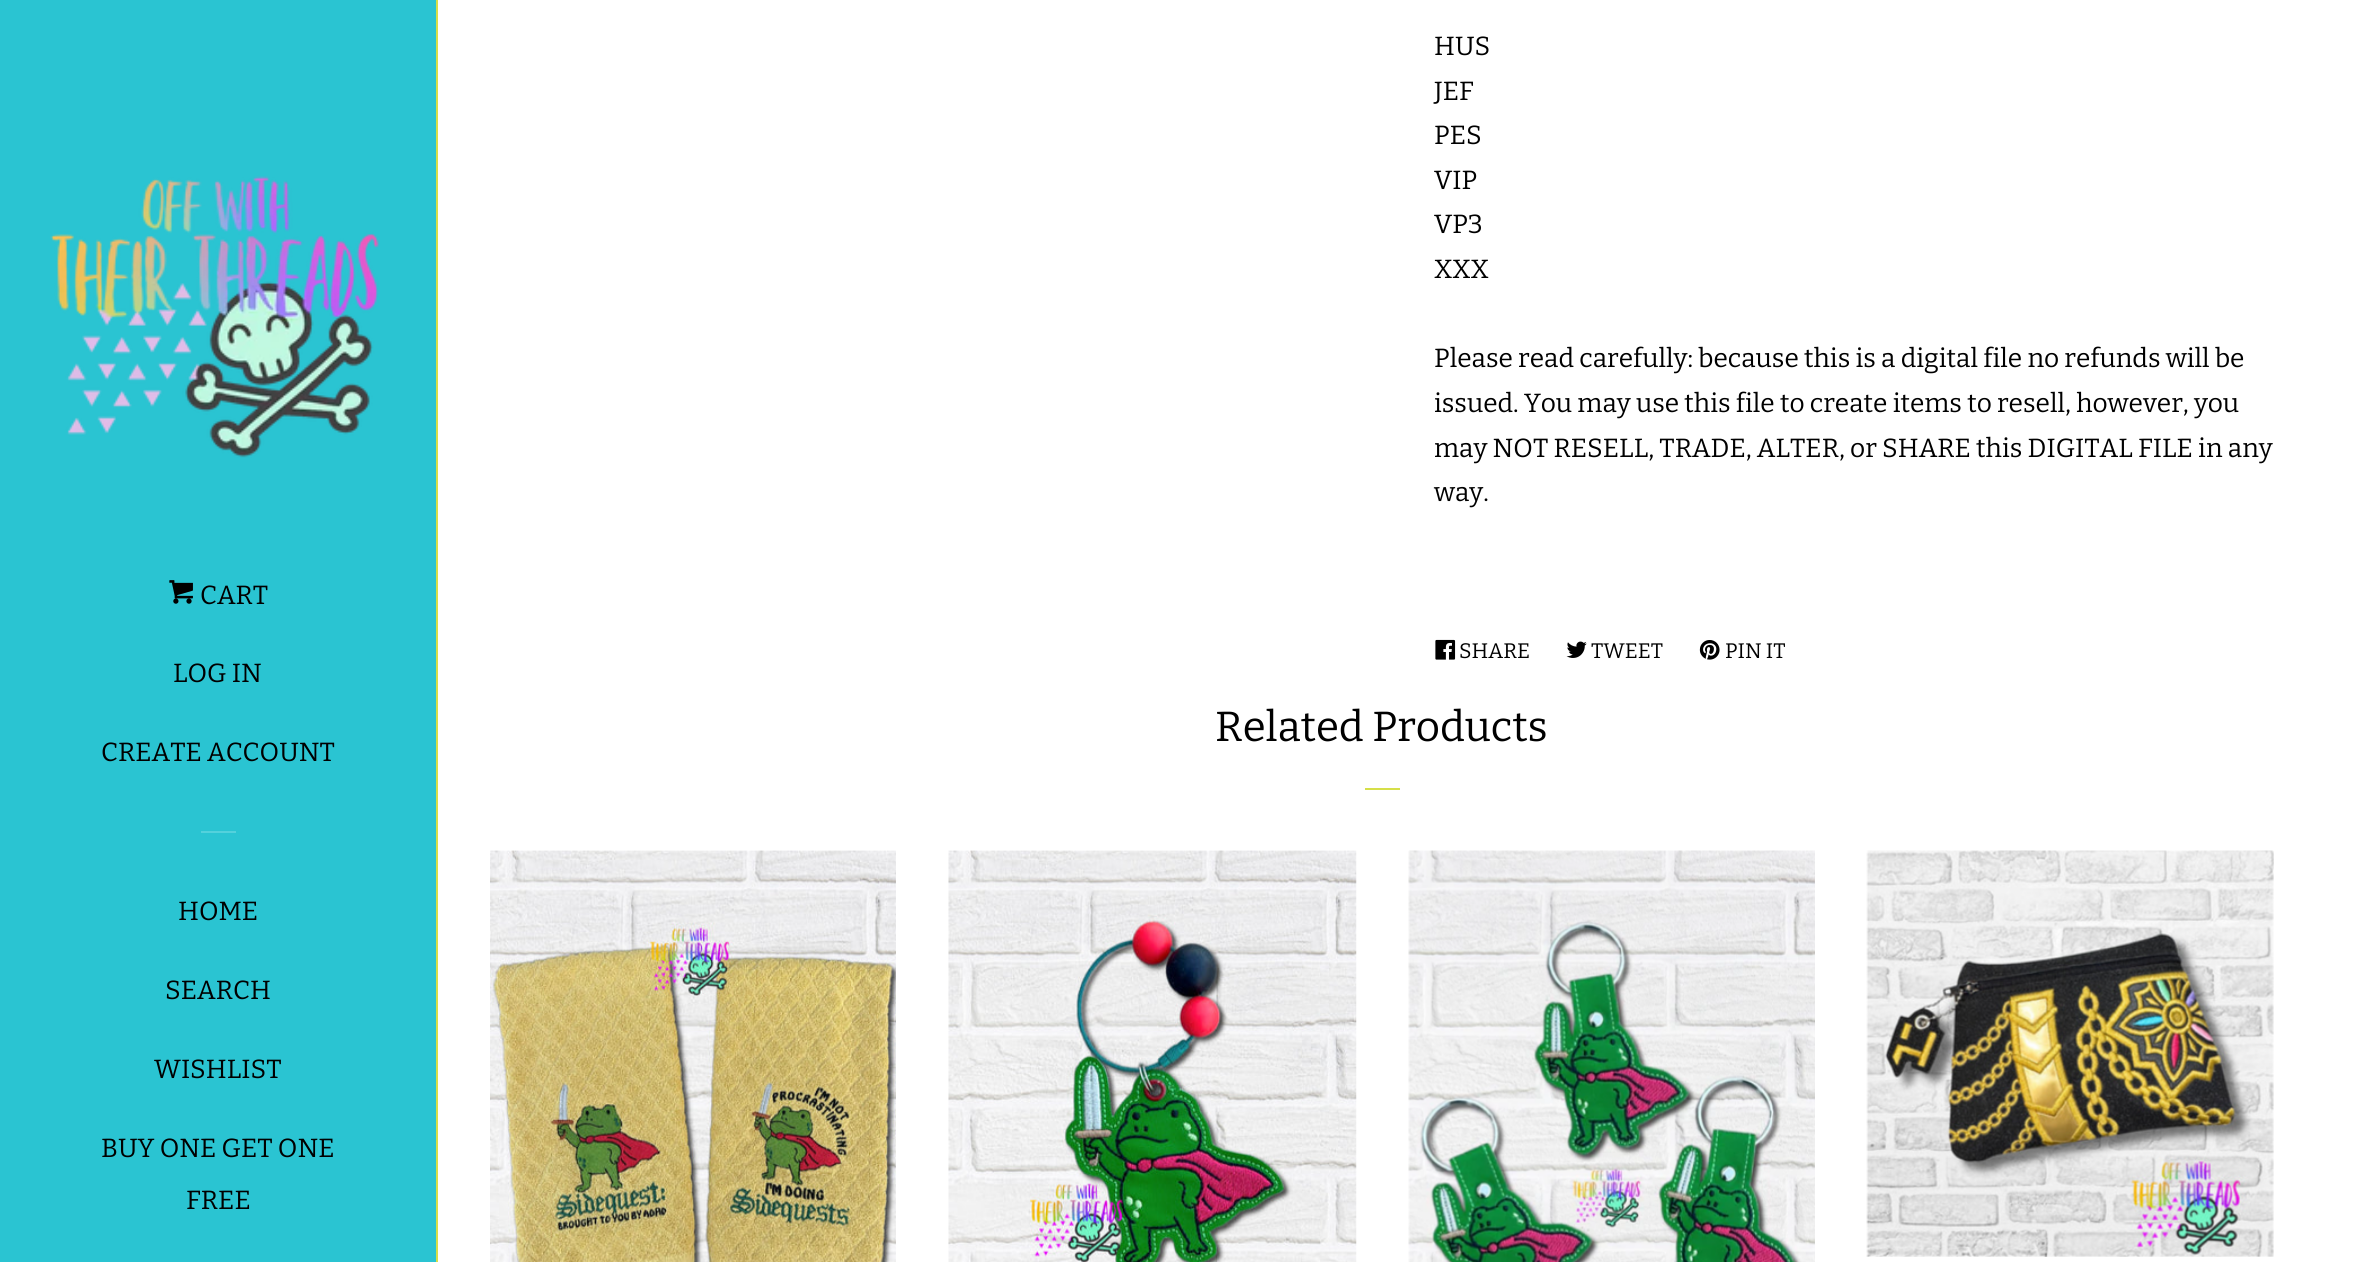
import math
import cairocffi as cairo

surface = cairo.ImageSurface(cairo.FORMAT_RGB24, 2378, 1262)
cr = cairo.Context(surface)
options = cairo.FontOptions()
options.set_hint_metrics(cairo.HINT_METRICS_OFF)
options.set_hint_style(cairo.HINT_STYLE_NONE)
cr.set_font_options(options)
cr.set_miter_limit(4)


def use_color(code):
    cr.set_source_rgb(*(v / 255 for v in bytes.fromhex(code[-6:])))


def picture(path, x, y, w, h):
    cr.save()
    cr.set_source_surface(cairo.ImageSurface.create_from_png(path), x, y)
    cr.rectangle(x, y, w, h)
    cr.fill()
    cr.restore()


use_color("#2ac4d2")
cr.paint()
use_color("#ffffff")
cr.rectangle(438, 0, 1940, 1262)
cr.fill()
cr.select_font_face("Bitter")
cr.set_font_size(26.25)
use_color("#000000")
cr.move_to(1434, 55)
cr.show_text("HUS")
cr.move_to(1434, 100)
cr.show_text("JEF")
cr.move_to(1434, 144)
cr.show_text("PES")
cr.move_to(1434, 189)
cr.show_text("VIP")
cr.move_to(1434, 233)
cr.show_text("VP3")
cr.move_to(1434, 278)
cr.show_text("XXX")
cr.move_to(1434, 367)
cr.show_text("Please read carefully: because this is a digital file no refunds will be")
cr.move_to(1434, 412)
cr.show_text("issued. You may use this file to create items to resell, however, you")
cr.move_to(1434, 457)
cr.show_text("may NOT RESELL, TRADE, ALTER, or SHARE this DIGITAL FILE in any")
cr.move_to(1434, 501)
cr.show_text("way.")
picture("img1.png", 1435, 639, 21, 21)
cr.set_font_size(21)
cr.move_to(1459, 658)
cr.show_text("SHARE")
picture("img2.png", 1566, 641, 21, 17)
cr.move_to(1591, 658)
cr.show_text("TWEET")
picture("img3.png", 1699, 640, 21, 20)
cr.move_to(1725, 658)
cr.show_text("PIN IT")
cr.set_font_size(42)
cr.move_to(1215, 741)
cr.show_text("Related Products")
use_color("#d6df49")
cr.rectangle(1365, 788, 35, 2)
cr.fill()
picture("img4.png", 490, 850, 406, 412)
picture("img5.png", 948, 850, 409, 412)
picture("img6.png", 1408, 850, 407, 412)
picture("img7.png", 1866, 850, 408, 407)
cr.rectangle(436, 0, 2, 1262)
cr.fill()
picture("img8.png", 50, 176, 329, 282)
picture("img9.png", 169, 580, 24, 24)
cr.set_font_size(26.25)
use_color("#000000")
cr.move_to(200, 604)
cr.show_text("CART")
cr.move_to(173, 682)
cr.show_text("LOG IN")
cr.move_to(101, 761)
cr.show_text("CREATE ACCOUNT")
use_color("#53d1dc")
cr.rectangle(201, 831, 35, 2)
cr.fill()
use_color("#000000")
cr.move_to(178, 920)
cr.show_text("HOME")
cr.move_to(165, 999)
cr.show_text("SEARCH")
cr.move_to(154, 1078)
cr.show_text("WISHLIST")
cr.move_to(101, 1157)
cr.show_text("BUY ONE GET ONE")
cr.move_to(186, 1209)
cr.show_text("FREE")
surface.write_to_png("result.png")
